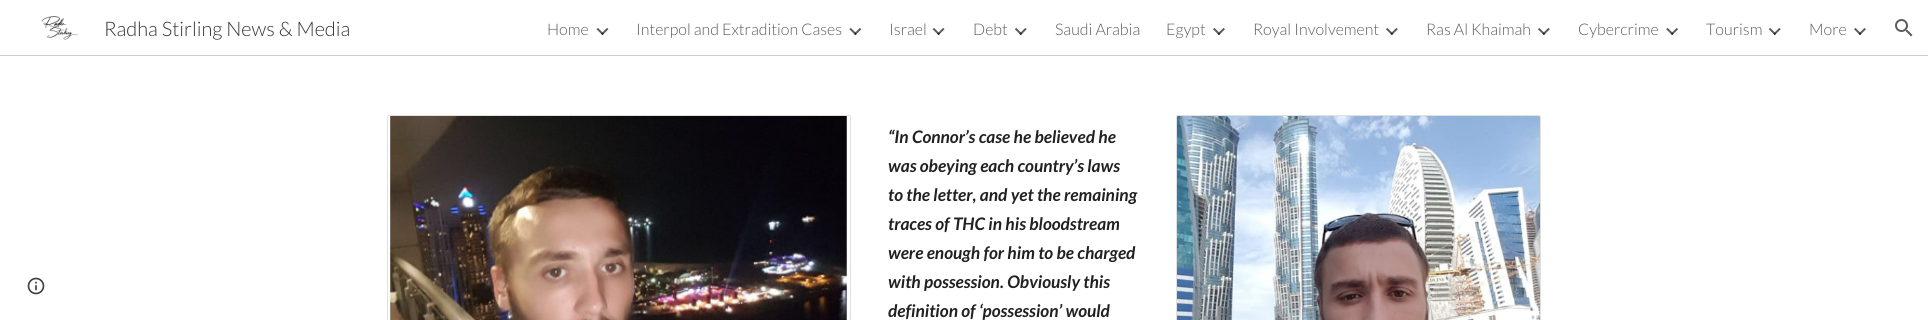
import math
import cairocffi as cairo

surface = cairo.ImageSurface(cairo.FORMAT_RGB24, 1928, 320)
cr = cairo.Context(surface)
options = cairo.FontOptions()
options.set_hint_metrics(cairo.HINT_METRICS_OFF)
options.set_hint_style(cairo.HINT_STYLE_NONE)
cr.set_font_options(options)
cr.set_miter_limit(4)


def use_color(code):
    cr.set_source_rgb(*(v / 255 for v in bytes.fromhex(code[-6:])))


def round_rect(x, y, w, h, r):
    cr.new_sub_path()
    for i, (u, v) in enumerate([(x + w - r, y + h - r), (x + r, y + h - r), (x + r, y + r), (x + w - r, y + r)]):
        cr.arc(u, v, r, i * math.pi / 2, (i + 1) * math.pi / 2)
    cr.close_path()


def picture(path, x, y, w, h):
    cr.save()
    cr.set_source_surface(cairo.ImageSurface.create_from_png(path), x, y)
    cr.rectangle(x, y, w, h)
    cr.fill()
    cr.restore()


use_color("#ffffff")
cr.paint()
picture("img1.png", 41, 16, 38, 24)
cr.select_font_face("Lato Light")
cr.set_font_size(20)
use_color("#333333")
cr.move_to(104, 36)
cr.show_text("Radha Stirling News & Media")
cr.set_font_size(16)
use_color("#5c5c5c")
cr.move_to(547, 35)
cr.show_text("Home")
picture("img2.png", 596, 28, 13, 8)
cr.move_to(636, 35)
cr.show_text("Interpol and Extradition Cases")
picture("img3.png", 849, 27, 13, 9)
cr.move_to(889, 35)
cr.show_text("Israel")
picture("img4.png", 932, 27, 13, 9)
cr.move_to(973, 35)
cr.show_text("Debt")
picture("img5.png", 1014, 27, 13, 9)
cr.move_to(1055, 35)
cr.show_text("Saudi Arabia")
cr.move_to(1166, 35)
cr.show_text("Egypt")
picture("img6.png", 1213, 27, 12, 8)
cr.move_to(1253, 35)
cr.show_text("Royal Involvement")
picture("img7.png", 1386, 27, 12, 9)
cr.move_to(1426, 35)
cr.show_text("Ras Al Khaimah")
picture("img8.png", 1538, 27, 12, 9)
cr.move_to(1578, 35)
cr.show_text("Cybercrime")
picture("img9.png", 1666, 27, 12, 9)
cr.move_to(1706, 35)
cr.show_text("Tourism")
picture("img10.png", 1768, 27, 13, 9)
cr.move_to(1809, 35)
cr.show_text("More")
picture("img11.png", 1854, 27, 12, 8)
picture("img12.png", 1895, 19, 18, 18)
use_color("#cccccc")
cr.rectangle(0, 55, 1928, 1)
cr.fill()
picture("img13.png", 27, 277, 18, 18)
round_rect(387.5, 115.5, 463, 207, 1.5)
use_color("#e0e0e0")
cr.set_line_width(1)
cr.stroke()
picture("img14.png", 388, 116, 462, 204)
cr.select_font_face("Lato", cairo.FONT_SLANT_ITALIC, cairo.FONT_WEIGHT_BOLD)
cr.set_font_size(17.3)
use_color("#212121")
cr.move_to(888, 143)
cr.show_text("“In Connor’s case he believed he")
cr.move_to(888, 172)
cr.show_text("was obeying each country’s laws")
cr.move_to(888, 201)
cr.show_text("to the letter, and yet the remaining")
cr.move_to(888, 230)
cr.show_text("traces of THC in his bloodstream")
cr.move_to(888, 259)
cr.show_text("were enough for him to be charged")
cr.move_to(888, 288)
cr.show_text("with possession. Obviously this")
cr.move_to(888, 317)
cr.show_text("definition of ‘possession’ would")
round_rect(1176.5, 115.5, 364, 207, 1.5)
use_color("#e0e0e0")
cr.stroke()
picture("img15.png", 1177, 116, 363, 204)
surface.write_to_png("result.png")
